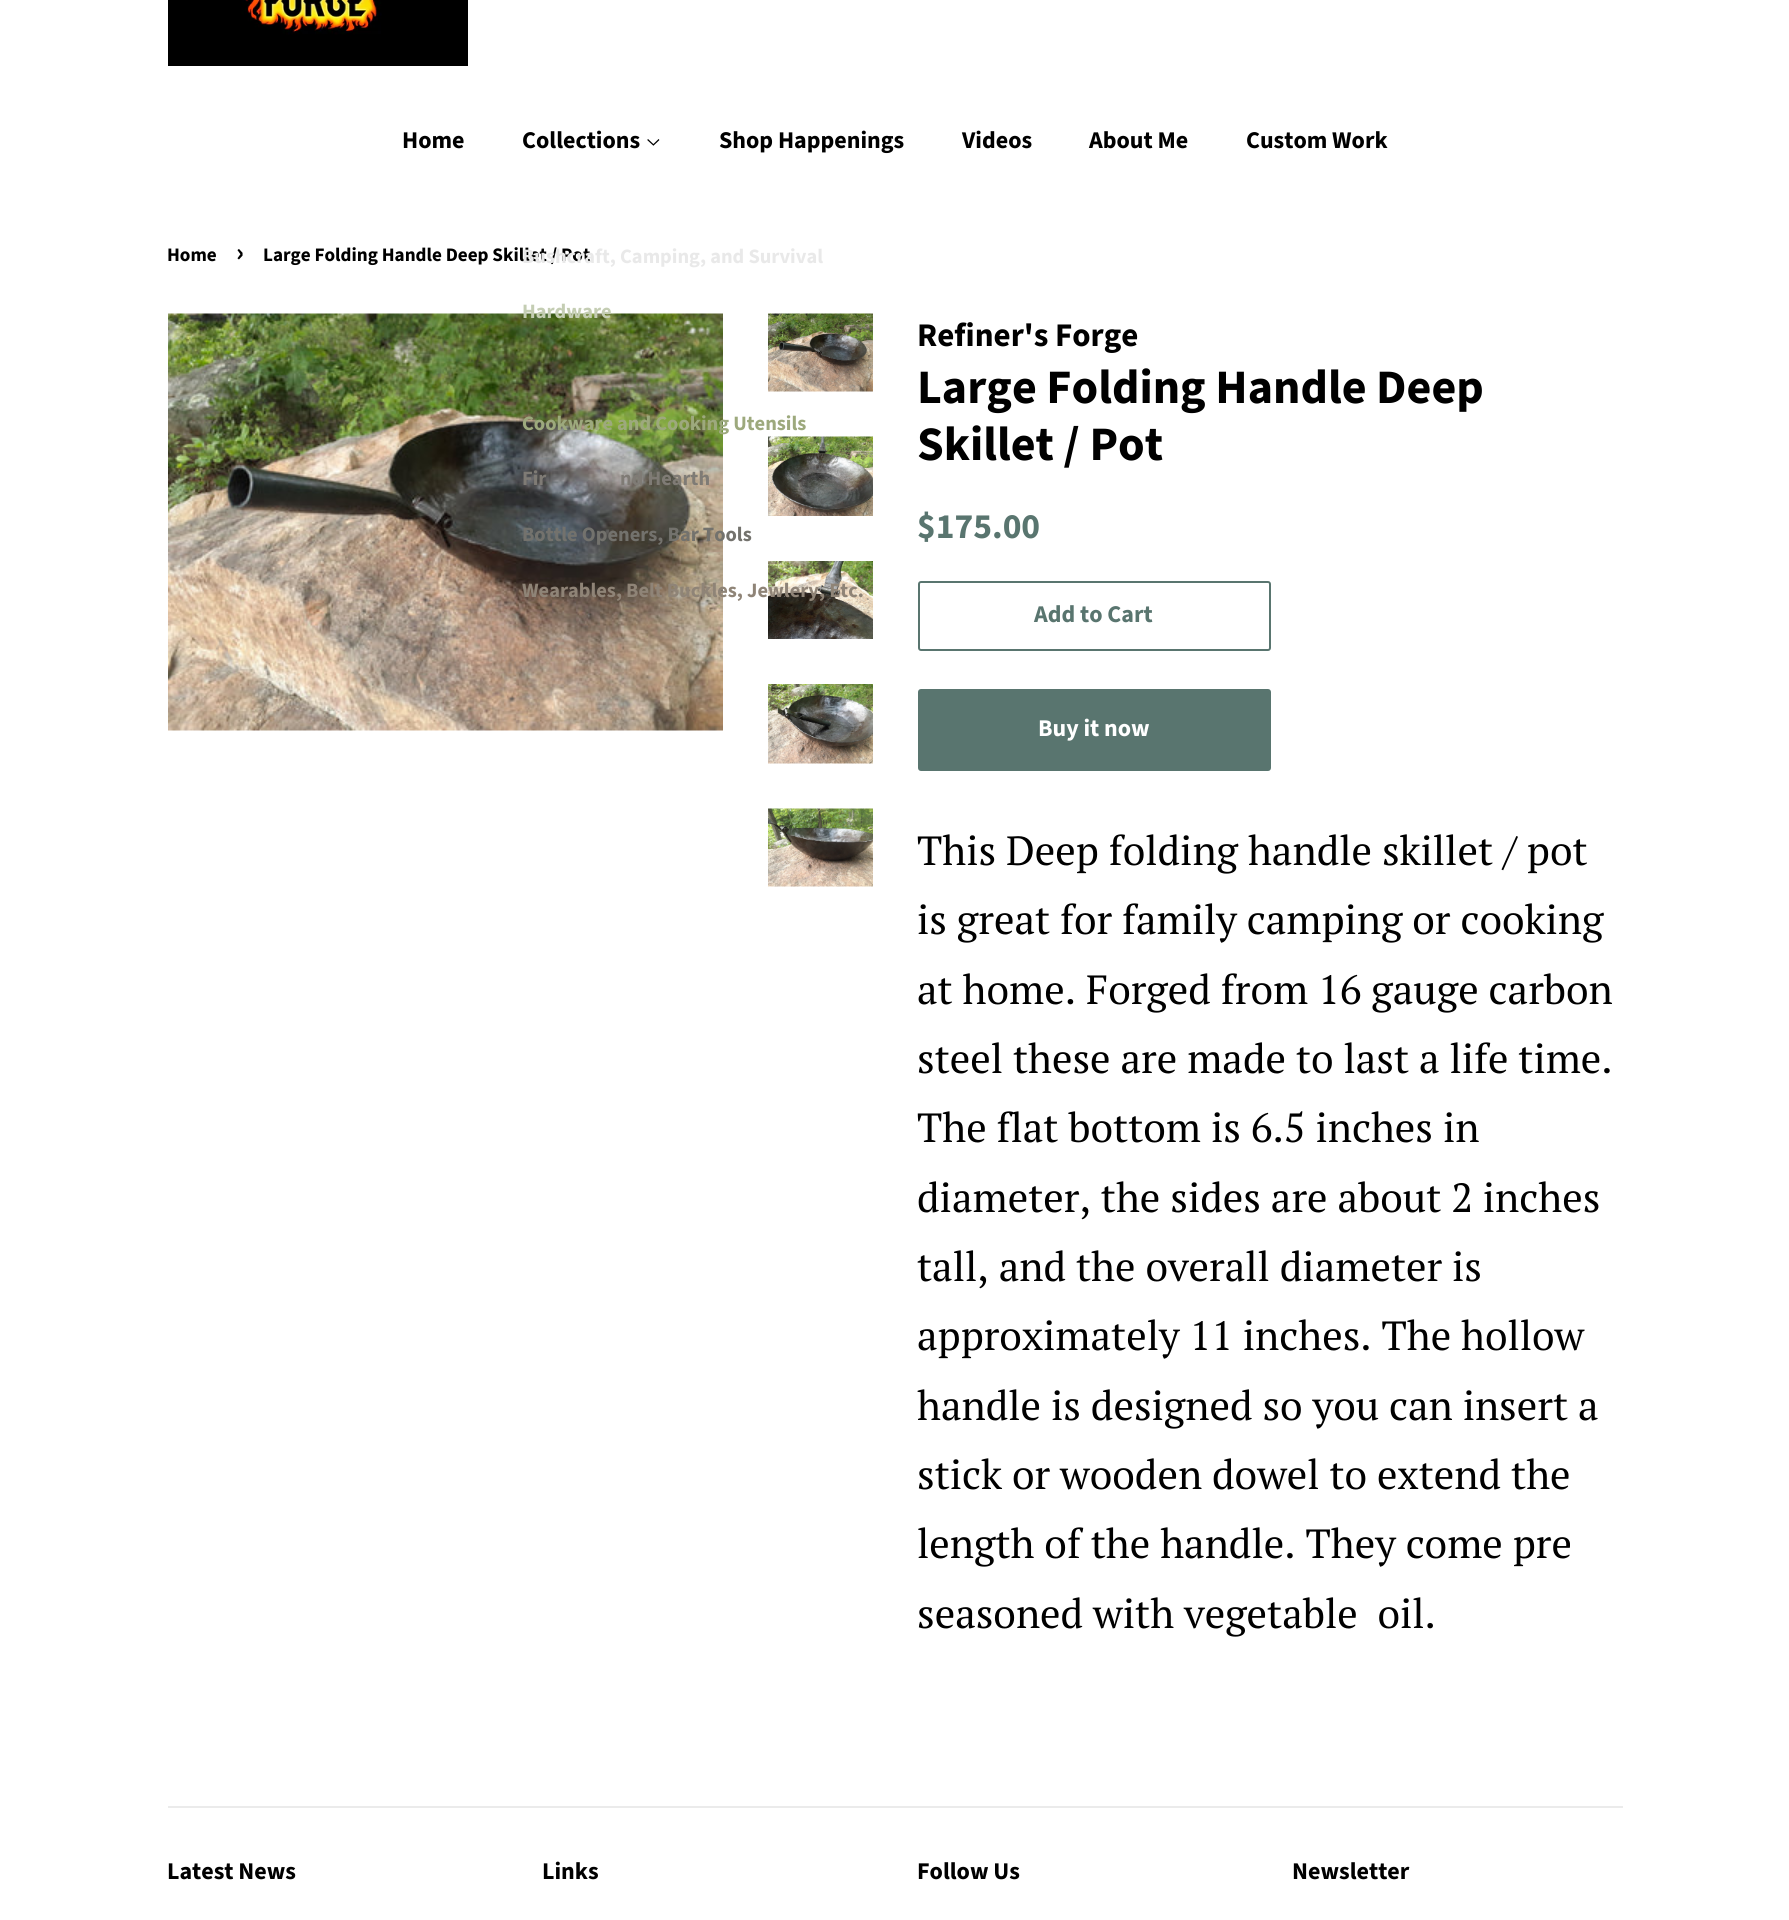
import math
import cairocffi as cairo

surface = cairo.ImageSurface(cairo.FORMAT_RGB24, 1789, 1920)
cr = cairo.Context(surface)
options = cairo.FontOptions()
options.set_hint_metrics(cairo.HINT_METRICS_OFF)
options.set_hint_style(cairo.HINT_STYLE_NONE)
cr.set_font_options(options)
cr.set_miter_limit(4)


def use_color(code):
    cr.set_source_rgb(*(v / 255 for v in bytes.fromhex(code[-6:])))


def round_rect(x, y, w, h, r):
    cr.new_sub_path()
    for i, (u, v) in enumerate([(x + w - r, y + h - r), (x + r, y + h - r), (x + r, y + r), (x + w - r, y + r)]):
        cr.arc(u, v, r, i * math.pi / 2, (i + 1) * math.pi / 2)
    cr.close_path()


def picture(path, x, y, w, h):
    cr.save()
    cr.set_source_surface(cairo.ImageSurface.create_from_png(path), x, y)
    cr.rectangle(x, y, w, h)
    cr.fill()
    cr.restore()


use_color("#ffffff")
cr.paint()
picture("img1.png", 168, 0, 300, 66)
cr.select_font_face("Source Sans Pro", cairo.FONT_SLANT_NORMAL, cairo.FONT_WEIGHT_BOLD)
cr.set_font_size(24)
use_color("#000000")
cr.move_to(522, 148)
cr.show_text("Collections")
picture("img2.png", 647, 139, 13, 7)
cr.set_font_size(19.1)
cr.move_to(263, 261)
cr.show_text("Large Folding Handle Deep Skillet / Pot")
cr.set_font_size(20.4)
use_color("#e9e9e9")
cr.move_to(522, 263)
cr.show_text("Bushcraft, Camping, and Survival")
picture("img3.png", 168, 313, 555, 418)
use_color("#c4cdb3")
cr.move_to(522, 318)
cr.show_text("Hardware")
use_color("#9da97d")
cr.move_to(522, 430)
cr.show_text("Cookware and Cooking Utensils")
use_color("#7f7b75")
cr.move_to(522, 485)
cr.show_text("Fir")
cr.move_to(620, 485)
cr.show_text("nd Hearth")
use_color("#73726d")
cr.move_to(522, 541)
cr.show_text("Bottle Openers, Bar Tools")
picture("img6.png", 768, 561, 105, 78)
use_color("#8f8477")
cr.move_to(522, 597)
cr.show_text("Wearables, Belt Buckles, Jewlery, Etc.")
cr.set_font_size(24)
use_color("#000000")
cr.move_to(402, 148)
cr.show_text("Home")
cr.move_to(719, 148)
cr.show_text("Shop Happenings")
cr.move_to(962, 148)
cr.show_text("Videos")
cr.move_to(1089, 148)
cr.show_text("About Me")
cr.move_to(1246, 148)
cr.show_text("Custom Work")
cr.set_font_size(19.1)
cr.move_to(167, 261)
cr.show_text("Home")
cr.set_font_size(27)
cr.move_to(236, 261)
cr.show_text("›")
picture("img4.png", 768, 313, 105, 79)
picture("img5.png", 768, 436, 105, 80)
picture("img7.png", 768, 684, 105, 80)
picture("img8.png", 768, 808, 105, 79)
cr.set_font_size(33)
cr.move_to(917, 346)
cr.show_text("Refiner's Forge")
cr.set_font_size(48)
cr.move_to(917, 403)
cr.show_text("Large Folding Handle Deep")
cr.move_to(917, 460)
cr.show_text("Skillet / Pot")
cr.set_font_size(35.5)
use_color("#59756f")
cr.move_to(917, 538)
cr.show_text("$175.00")
round_rect(919, 582, 351, 68, 2)
cr.stroke()
cr.set_font_size(24)
cr.move_to(1034, 622)
cr.show_text("Add to Cart")
round_rect(918, 689, 353, 82, 3)
cr.fill()
use_color("#ffffff")
cr.move_to(1038, 736)
cr.show_text("Buy it now")
cr.select_font_face("PT Serif")
cr.set_font_size(40.75)
use_color("#000000")
cr.move_to(917, 865)
cr.show_text("This Deep folding handle skillet / pot")
cr.move_to(917, 934)
cr.show_text("is great for family camping or cooking")
cr.move_to(917, 1004)
cr.show_text("at home. Forged from 16 gauge carbon")
cr.move_to(917, 1073)
cr.show_text("steel these are made to last a life time.")
cr.move_to(917, 1142)
cr.show_text("The flat bottom is 6.5 inches in")
cr.move_to(917, 1212)
cr.show_text("diameter, the sides are about 2 inches")
cr.move_to(917, 1281)
cr.show_text("tall, and the overall diameter is")
cr.move_to(917, 1350)
cr.show_text("approximately 11 inches. The hollow")
cr.move_to(917, 1420)
cr.show_text("handle is designed so you can insert a")
cr.move_to(917, 1489)
cr.show_text("stick or wooden dowel to extend the")
cr.move_to(917, 1558)
cr.show_text("length of the handle. They come pre")
cr.move_to(917, 1628)
cr.show_text("seasoned with vegetable  oil.")
use_color("#ebebeb")
cr.rectangle(168, 1806, 1455, 2)
cr.fill()
cr.select_font_face("Source Sans Pro", cairo.FONT_SLANT_NORMAL, cairo.FONT_WEIGHT_BOLD)
cr.set_font_size(24)
use_color("#000000")
cr.move_to(167, 1879)
cr.show_text("Latest News")
cr.move_to(542, 1879)
cr.show_text("Links")
cr.move_to(917, 1879)
cr.show_text("Follow Us")
cr.move_to(1292, 1879)
cr.show_text("Newsletter")
surface.write_to_png("result.png")
